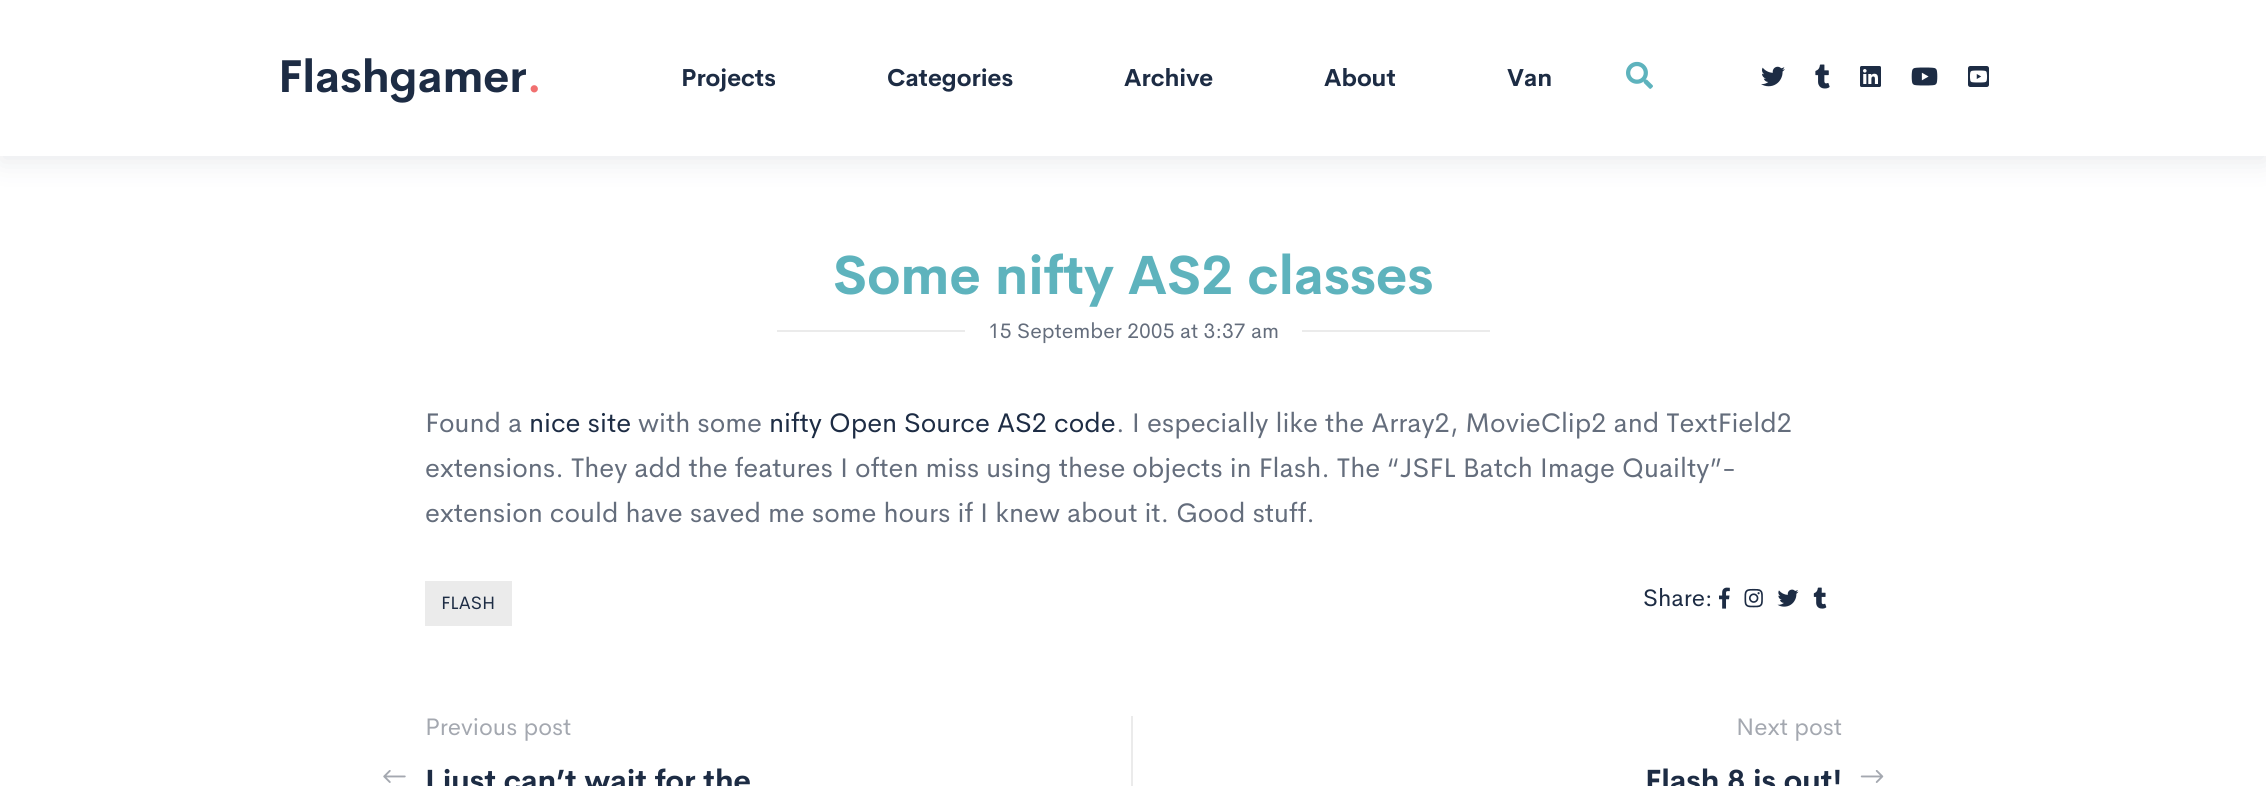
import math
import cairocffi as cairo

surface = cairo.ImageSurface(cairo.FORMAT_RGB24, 2266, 786)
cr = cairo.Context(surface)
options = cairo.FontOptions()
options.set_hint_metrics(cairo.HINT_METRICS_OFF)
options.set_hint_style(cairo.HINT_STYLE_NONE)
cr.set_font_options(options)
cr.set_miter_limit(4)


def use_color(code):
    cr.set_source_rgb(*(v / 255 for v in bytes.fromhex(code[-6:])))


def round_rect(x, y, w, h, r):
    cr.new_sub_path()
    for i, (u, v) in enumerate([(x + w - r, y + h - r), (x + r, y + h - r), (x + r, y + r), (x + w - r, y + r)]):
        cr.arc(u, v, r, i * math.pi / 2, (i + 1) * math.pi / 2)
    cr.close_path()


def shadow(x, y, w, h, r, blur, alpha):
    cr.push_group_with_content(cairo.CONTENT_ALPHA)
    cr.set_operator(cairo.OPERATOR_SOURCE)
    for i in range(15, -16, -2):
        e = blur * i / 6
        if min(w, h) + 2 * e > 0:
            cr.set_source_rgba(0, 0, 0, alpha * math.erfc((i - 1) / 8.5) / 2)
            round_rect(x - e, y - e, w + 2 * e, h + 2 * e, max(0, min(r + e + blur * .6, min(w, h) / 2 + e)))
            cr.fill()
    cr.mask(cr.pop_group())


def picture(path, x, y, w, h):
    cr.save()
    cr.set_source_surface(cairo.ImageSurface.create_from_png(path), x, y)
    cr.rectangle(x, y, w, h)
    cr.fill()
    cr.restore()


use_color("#ffffff")
cr.paint()
use_color("#202d49")
shadow(0, 6, 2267, 156, 0, 13.5, 0.1)
use_color("#ffffff")
cr.rectangle(0, 0, 2266, 156)
cr.fill()
cr.select_font_face("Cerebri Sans", cairo.FONT_SLANT_NORMAL, cairo.FONT_WEIGHT_BOLD)
cr.set_font_size(45)
use_color("#1d2c44")
cr.move_to(278, 92)
cr.show_text("Flashgamer")
use_color("#f17070")
cr.move_to(527, 92)
cr.show_text(".")
cr.set_font_size(24)
use_color("#1d2c44")
cr.move_to(681, 86)
cr.show_text("Projects")
cr.move_to(887, 86)
cr.show_text("Categories")
cr.move_to(1124, 86)
cr.show_text("Archive")
cr.move_to(1324, 86)
cr.show_text("About")
cr.move_to(1507, 86)
cr.show_text("Van")
picture("img1.png", 1626, 61, 27, 28)
picture("img2.png", 1761, 66, 24, 21)
picture("img3.png", 1815, 64, 15, 25)
picture("img4.png", 1860, 66, 21, 21)
picture("img5.png", 1911, 67, 27, 19)
picture("img6.png", 1968, 66, 21, 21)
cr.set_font_size(54)
use_color("#5eb3bd")
cr.move_to(833, 294)
cr.show_text("Some nifty AS2 classes")
use_color("#ebebeb")
cr.rectangle(777, 330, 188, 2)
cr.fill()
cr.select_font_face("Cerebri Sans")
cr.set_font_size(21)
use_color("#646d7c")
cr.move_to(988, 338)
cr.show_text("15 September 2005 at 3:37 am")
use_color("#ebebeb")
cr.rectangle(1302, 330, 188, 2)
cr.fill()
cr.set_font_size(27)
use_color("#646d7c")
cr.move_to(425, 432)
cr.show_text("Found a")
use_color("#1d2c44")
cr.move_to(529, 432)
cr.show_text("nice site")
use_color("#646d7c")
cr.move_to(638, 432)
cr.show_text("with some")
use_color("#1d2c44")
cr.move_to(769, 432)
cr.show_text("nifty Open Source AS2 code")
use_color("#646d7c")
cr.move_to(1116, 432)
cr.show_text(". I especially like the Array2, MovieClip2 and TextField2")
cr.move_to(425, 477)
cr.show_text("extensions. They add the features I often miss using these objects in Flash. The “JSFL Batch Image Quailty”-")
cr.move_to(425, 522)
cr.show_text("extension could have saved me some hours if I knew about it. Good stuff.")
use_color("#ebebeb")
cr.rectangle(425, 581, 87, 45)
cr.fill()
cr.set_font_size(18)
use_color("#1d2c44")
cr.move_to(441, 609)
cr.show_text("FLASH")
cr.set_font_size(24)
cr.move_to(1643, 606)
cr.show_text("Share:")
picture("img7.png", 1719, 587, 11, 22)
picture("img8.png", 1744, 588, 19, 20)
picture("img9.png", 1777, 589, 22, 18)
picture("img10.png", 1813, 587, 14, 22)
picture("img11.png", 383, 770, 23, 13)
use_color("#ebebeb")
cr.rectangle(1131, 716, 2, 70)
cr.fill()
use_color("#a4a8b0")
cr.move_to(425, 735)
cr.show_text("Previous post")
cr.select_font_face("Cerebri Sans", cairo.FONT_SLANT_NORMAL, cairo.FONT_WEIGHT_BOLD)
cr.set_font_size(30)
use_color("#1d2c44")
cr.move_to(425, 791)
cr.show_text("I just can’t wait for the")
cr.select_font_face("Cerebri Sans")
cr.set_font_size(24)
use_color("#a4a8b0")
cr.move_to(1736, 735)
cr.show_text("Next post")
cr.select_font_face("Cerebri Sans", cairo.FONT_SLANT_NORMAL, cairo.FONT_WEIGHT_BOLD)
cr.set_font_size(30)
use_color("#1d2c44")
cr.move_to(1645, 791)
cr.show_text("Flash 8 is out!")
picture("img12.png", 1860, 770, 24, 13)
surface.write_to_png("result.png")
